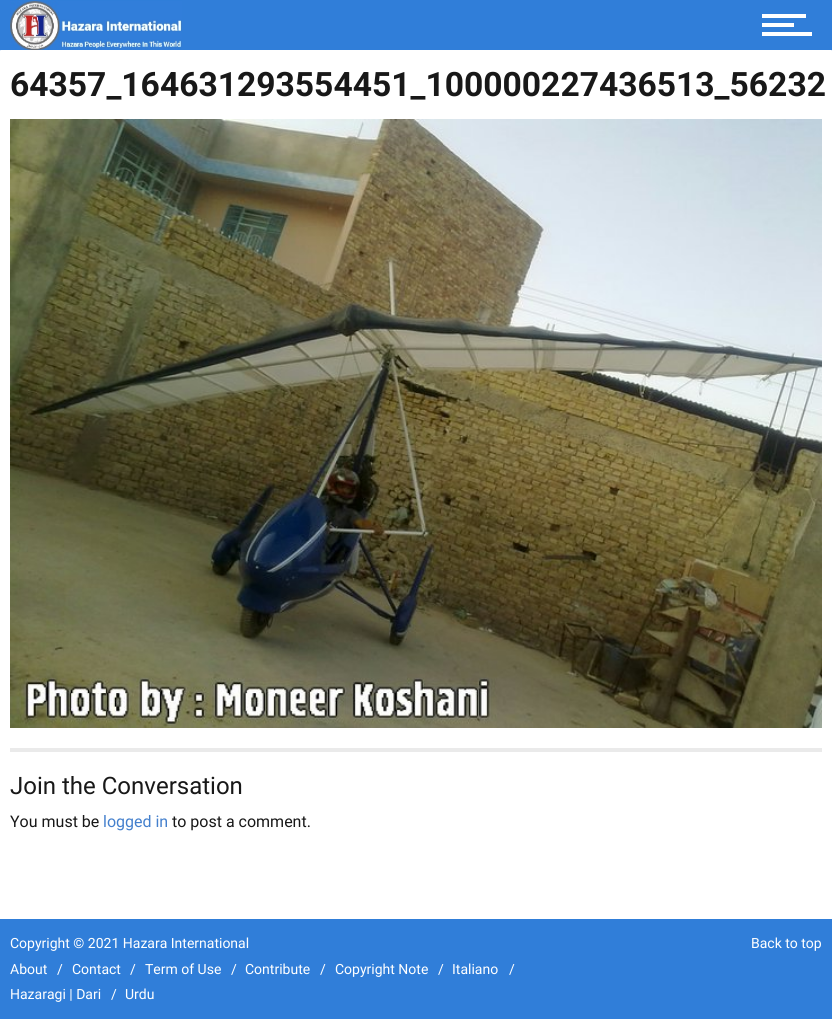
import math
import cairocffi as cairo

surface = cairo.ImageSurface(cairo.FORMAT_RGB24, 832, 1019)
cr = cairo.Context(surface)
options = cairo.FontOptions()
options.set_hint_metrics(cairo.HINT_METRICS_OFF)
options.set_hint_style(cairo.HINT_STYLE_NONE)
cr.set_font_options(options)
cr.set_miter_limit(4)


def use_color(code):
    cr.set_source_rgb(*(v / 255 for v in bytes.fromhex(code[-6:])))


def picture(path, x, y, w, h):
    cr.save()
    cr.set_source_surface(cairo.ImageSurface.create_from_png(path), x, y)
    cr.rectangle(x, y, w, h)
    cr.fill()
    cr.restore()


use_color("#ffffff")
cr.paint()
use_color("#307ed9")
cr.rectangle(0, 0, 832, 50)
cr.fill()
cr.new_path()
cr.move_to(3, 48)
cr.line_to(829, 48)
cr.curve_to(830.5, 48, 832, 49.5, 832, 51)
cr.line_to(832, 50)
cr.line_to(0, 50)
cr.line_to(0, 51)
cr.curve_to(0, 49.5, 1.5, 48, 3, 48)
cr.close_path()
cr.fill()
picture("img1.png", 10, 0, 172, 50)
use_color("#ffffff")
cr.rectangle(762, 32, 50, 4)
cr.fill()
cr.rectangle(762, 23, 32, 4)
cr.fill()
cr.rectangle(762, 14, 44, 4)
cr.fill()
cr.select_font_face("Roboto", cairo.FONT_SLANT_NORMAL, cairo.FONT_WEIGHT_BOLD)
cr.set_font_size(33.6)
use_color("#181818")
cr.move_to(10, 96)
cr.show_text("64357_164631293554451_100000227436513_56232")
picture("img2.png", 10, 119, 812, 609)
use_color("#eaeaea")
cr.rectangle(10, 748, 812, 4)
cr.fill()
cr.select_font_face("Roboto")
cr.set_font_size(24)
use_color("#181818")
cr.move_to(10, 794)
cr.show_text("Join the Conversation")
cr.set_font_size(16)
cr.move_to(10, 827)
cr.show_text("You must be")
use_color("#4480cd")
cr.move_to(103, 827)
cr.show_text("logged in")
use_color("#181818")
cr.move_to(172, 827)
cr.show_text("to post a comment.")
use_color("#307ed9")
cr.rectangle(0, 919, 832, 100)
cr.fill()
cr.set_font_size(14)
use_color("#ffffff")
cr.move_to(10, 948)
cr.show_text("Copyright © 2021 Hazara International")
cr.move_to(751, 948)
cr.show_text("Back to top")
cr.move_to(10, 974)
cr.show_text("About")
cr.move_to(57, 974)
cr.show_text("/")
cr.move_to(72, 974)
cr.show_text("Contact")
cr.move_to(130, 974)
cr.show_text("/")
cr.move_to(145, 974)
cr.show_text("Term of Use")
cr.move_to(231, 974)
cr.show_text("/")
cr.move_to(245, 974)
cr.show_text("Contribute")
cr.move_to(320, 974)
cr.show_text("/")
cr.move_to(335, 974)
cr.show_text("Copyright Note")
cr.move_to(438, 974)
cr.show_text("/")
cr.move_to(452, 974)
cr.show_text("Italiano")
cr.move_to(509, 974)
cr.show_text("/")
cr.move_to(10, 999)
cr.show_text("Hazaragi | Dari")
cr.move_to(111, 999)
cr.show_text("/")
cr.move_to(125, 999)
cr.show_text("Urdu")
surface.write_to_png("result.png")
